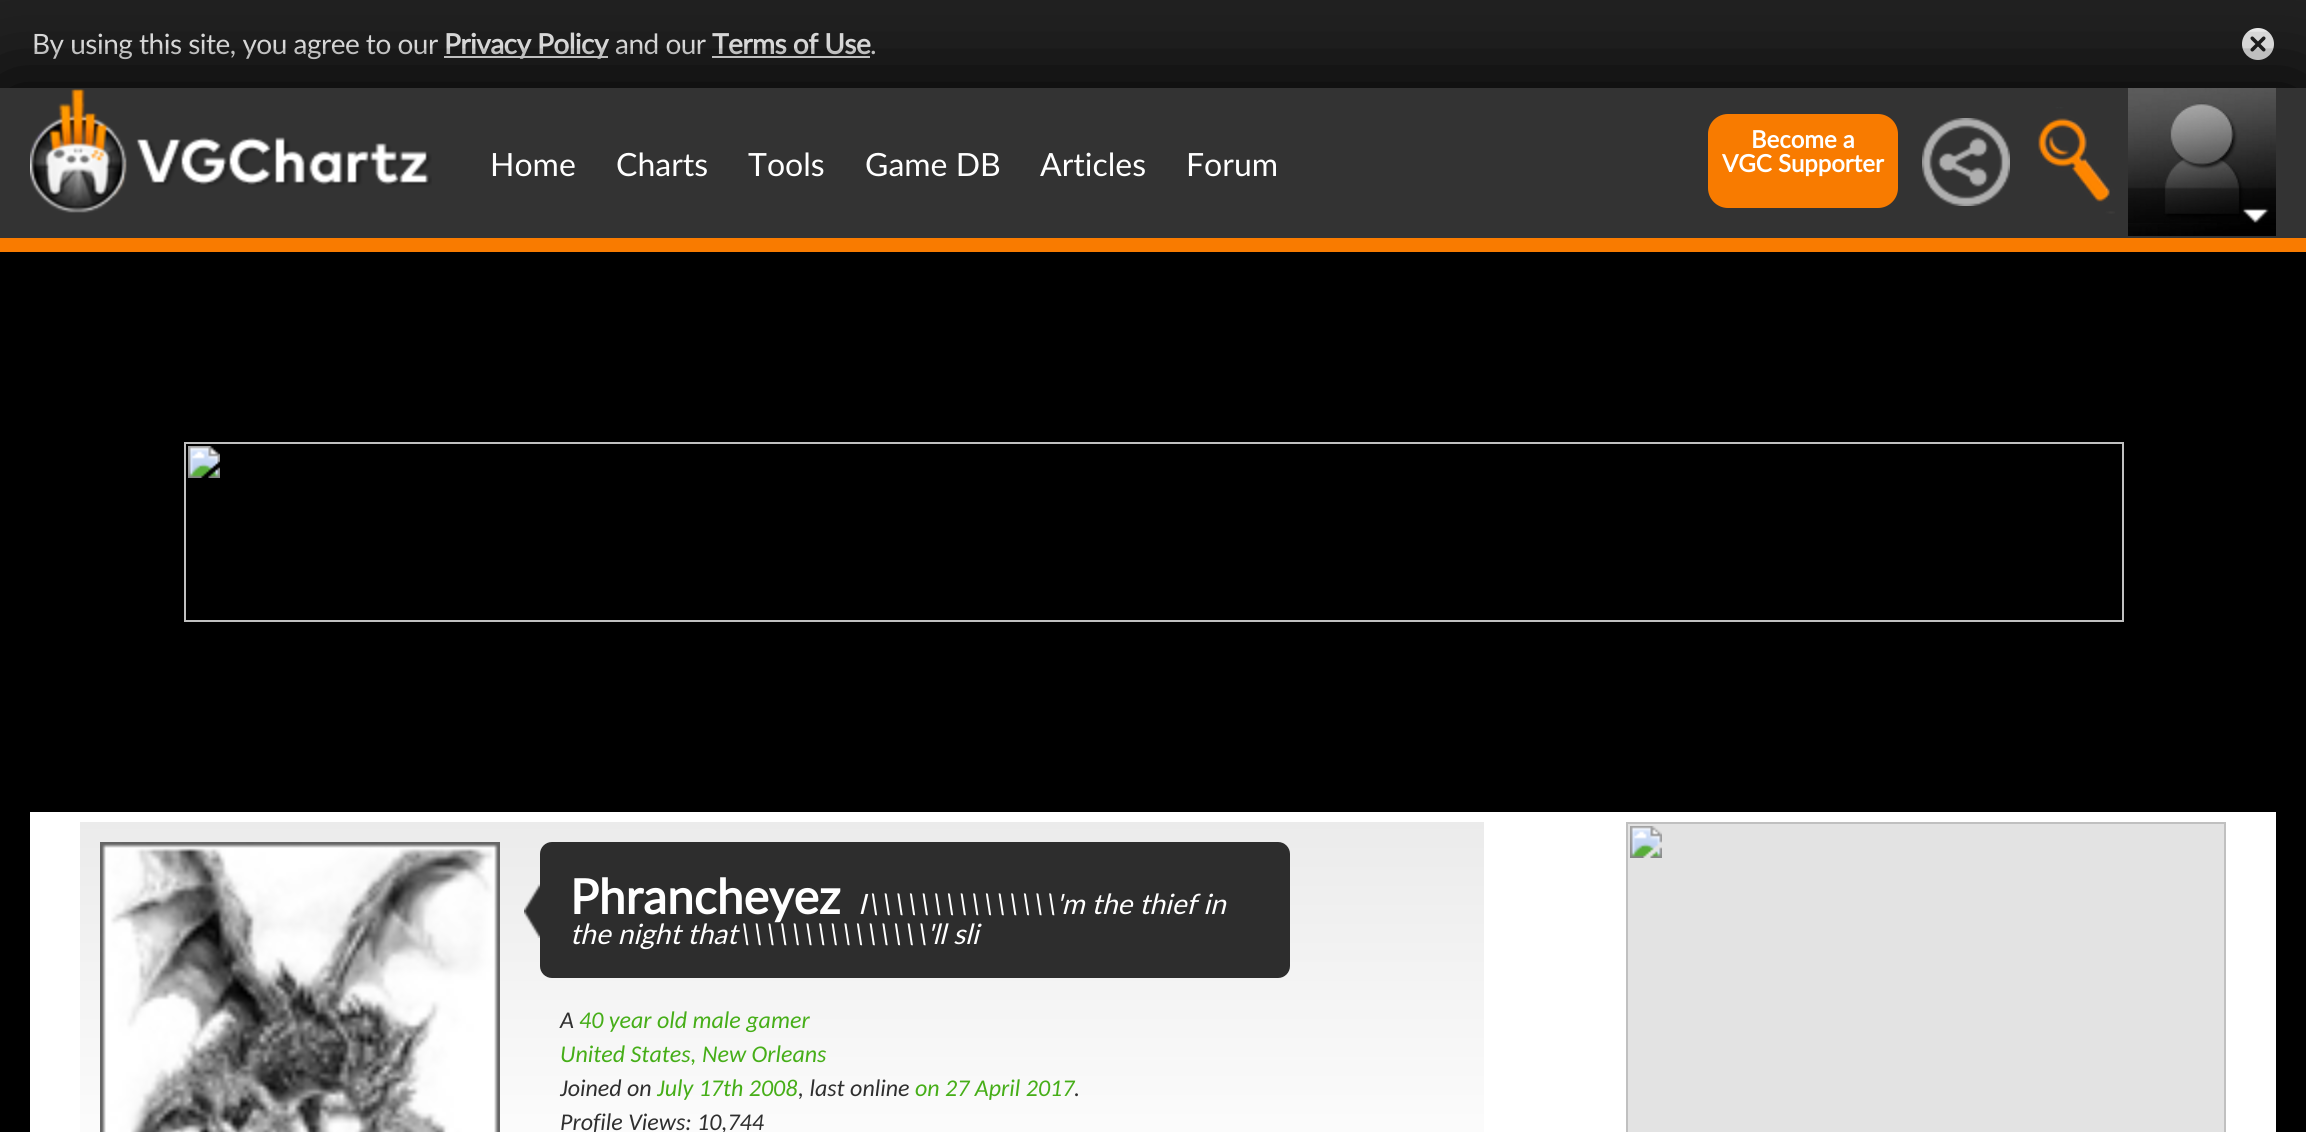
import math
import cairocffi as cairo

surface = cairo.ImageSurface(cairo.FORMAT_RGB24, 2306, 1132)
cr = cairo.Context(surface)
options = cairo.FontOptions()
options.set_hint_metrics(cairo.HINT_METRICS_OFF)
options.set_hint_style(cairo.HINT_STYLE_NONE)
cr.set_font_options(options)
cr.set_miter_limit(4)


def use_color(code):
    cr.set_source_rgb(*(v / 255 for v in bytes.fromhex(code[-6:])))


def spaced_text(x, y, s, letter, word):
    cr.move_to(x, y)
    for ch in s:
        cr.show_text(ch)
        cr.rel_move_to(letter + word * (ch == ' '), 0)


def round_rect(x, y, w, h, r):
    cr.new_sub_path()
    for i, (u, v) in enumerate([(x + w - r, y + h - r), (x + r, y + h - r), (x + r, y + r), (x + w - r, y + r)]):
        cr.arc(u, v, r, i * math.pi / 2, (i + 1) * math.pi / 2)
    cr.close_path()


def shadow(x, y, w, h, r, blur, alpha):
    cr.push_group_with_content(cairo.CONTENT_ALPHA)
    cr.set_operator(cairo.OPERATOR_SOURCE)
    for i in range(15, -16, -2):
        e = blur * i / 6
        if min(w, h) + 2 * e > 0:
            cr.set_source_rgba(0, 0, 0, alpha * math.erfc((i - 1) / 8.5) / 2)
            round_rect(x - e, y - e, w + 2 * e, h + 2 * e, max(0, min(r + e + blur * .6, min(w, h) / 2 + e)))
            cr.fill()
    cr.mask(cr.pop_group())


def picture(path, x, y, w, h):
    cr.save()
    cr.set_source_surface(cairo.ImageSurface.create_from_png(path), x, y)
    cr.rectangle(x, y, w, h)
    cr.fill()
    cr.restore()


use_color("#000000")
cr.paint()
use_color("#222222")
cr.rectangle(0, 0, 2306, 88)
cr.fill()
cr.select_font_face("Lato")
cr.set_font_size(28)
use_color("#ffffff")
spaced_text(32, 54, "By using this site, you agree to our", -0.5, 0)
cr.rectangle(444, 56, 164, 2)
cr.fill()
cr.select_font_face("Lato", cairo.FONT_SLANT_NORMAL, cairo.FONT_WEIGHT_BOLD)
spaced_text(444, 54, "Privacy Policy", -0.5, 0)
cr.select_font_face("Lato")
spaced_text(615, 54, "and our", -0.5, 0)
cr.select_font_face("Lato", cairo.FONT_SLANT_NORMAL, cairo.FONT_WEIGHT_BOLD)
spaced_text(712, 54, "Terms of Use", -0.5, 0)
cr.select_font_face("Lato")
spaced_text(870, 54, ".", -0.5, 0)
cr.rectangle(712, 56, 158, 2)
cr.fill()
picture("img1.png", 2242, 28, 32, 32)
use_color("#000000")
shadow(0, 90, 2306, 164, 0, 50, 1)
use_color("#333333")
cr.rectangle(0, 88, 2306, 150)
cr.fill()
picture("img2.png", 30, 89, 402, 124)
cr.set_font_size(32)
use_color("#ffffff")
cr.move_to(490, 176)
cr.show_text("Home")
cr.move_to(616, 176)
cr.show_text("Charts")
cr.move_to(748, 176)
cr.show_text("Tools")
cr.move_to(865, 176)
cr.show_text("Game DB")
cr.move_to(1040, 176)
cr.show_text("Articles")
cr.move_to(1186, 176)
cr.show_text("Forum")
use_color("#f87b00")
round_rect(1709, 115, 188, 92, 19)
cr.fill_preserve()
cr.stroke()
cr.select_font_face("Lato", cairo.FONT_SLANT_NORMAL, cairo.FONT_WEIGHT_BOLD)
cr.set_font_size(24)
use_color("#ffffff")
cr.move_to(1751, 148)
cr.show_text("Become a")
cr.move_to(1722, 172)
cr.show_text("VGC Supporter")
picture("img3.png", 1922, 118, 88, 88)
picture("img4.png", 2038, 107, 77, 107)
picture("img5.png", 2128, 88, 148, 148)
picture("img6.png", 2128, 187, 148, 36)
use_color("#f97b00")
cr.rectangle(0, 238, 2306, 14)
cr.fill()
picture("img7.png", 184, 442, 1940, 180)
use_color("#ffffff")
cr.rectangle(30, 812, 2246, 320)
cr.fill()
gradient = cairo.LinearGradient(80, 822, 80, 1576)
gradient.add_color_stop_rgba(0, 0.922, 0.922, 0.922, 1)
gradient.add_color_stop_rgba(0.5, 1, 1, 1, 1)
gradient.add_color_stop_rgba(1, 1, 1, 1, 1)
cr.set_source(gradient)
cr.rectangle(80, 822, 1404, 310)
cr.fill()
picture("img8.png", 100, 842, 400, 290)
use_color("#2d2d2d")
round_rect(540, 842, 750, 136, 12)
cr.fill()
picture("img9.png", 524, 884, 16, 54)
cr.set_font_size(48)
use_color("#ffffff")
cr.move_to(570, 914)
cr.show_text("Phrancheyez")
cr.select_font_face("Lato", cairo.FONT_SLANT_ITALIC)
cr.set_font_size(28)
cr.move_to(858, 914)
cr.show_text("I\\\\\\\\\\\\\\\\\\\\\\\\\\\\\\'m the thief in")
cr.move_to(570, 944)
cr.show_text("the night that\\\\\\\\\\\\\\\\\\\\\\\\\\\\\\'ll sli")
cr.select_font_face("Carlito", cairo.FONT_SLANT_ITALIC)
cr.set_font_size(24)
use_color("#2f2f2f")
cr.move_to(560, 1028)
cr.show_text("A")
use_color("#46ae18")
cr.move_to(579, 1028)
cr.show_text("40 year old male gamer")
cr.move_to(560, 1062)
cr.show_text("United States, New Orleans")
use_color("#2f2f2f")
cr.move_to(560, 1096)
cr.show_text("Joined on")
use_color("#46ae18")
cr.move_to(657, 1096)
cr.show_text("July 17th 2008")
use_color("#2f2f2f")
cr.move_to(798, 1096)
cr.show_text(", last online")
use_color("#46ae18")
cr.move_to(915, 1096)
cr.show_text("on 27 April 2017")
use_color("#2f2f2f")
cr.move_to(1074, 1096)
cr.show_text(".")
cr.move_to(560, 1130)
cr.show_text("Profile Views: 10,744")
use_color("#e3e3e3")
cr.rectangle(1628, 824, 596, 308)
cr.fill()
picture("img10.png", 1626, 822, 600, 310)
surface.write_to_png("result.png")
